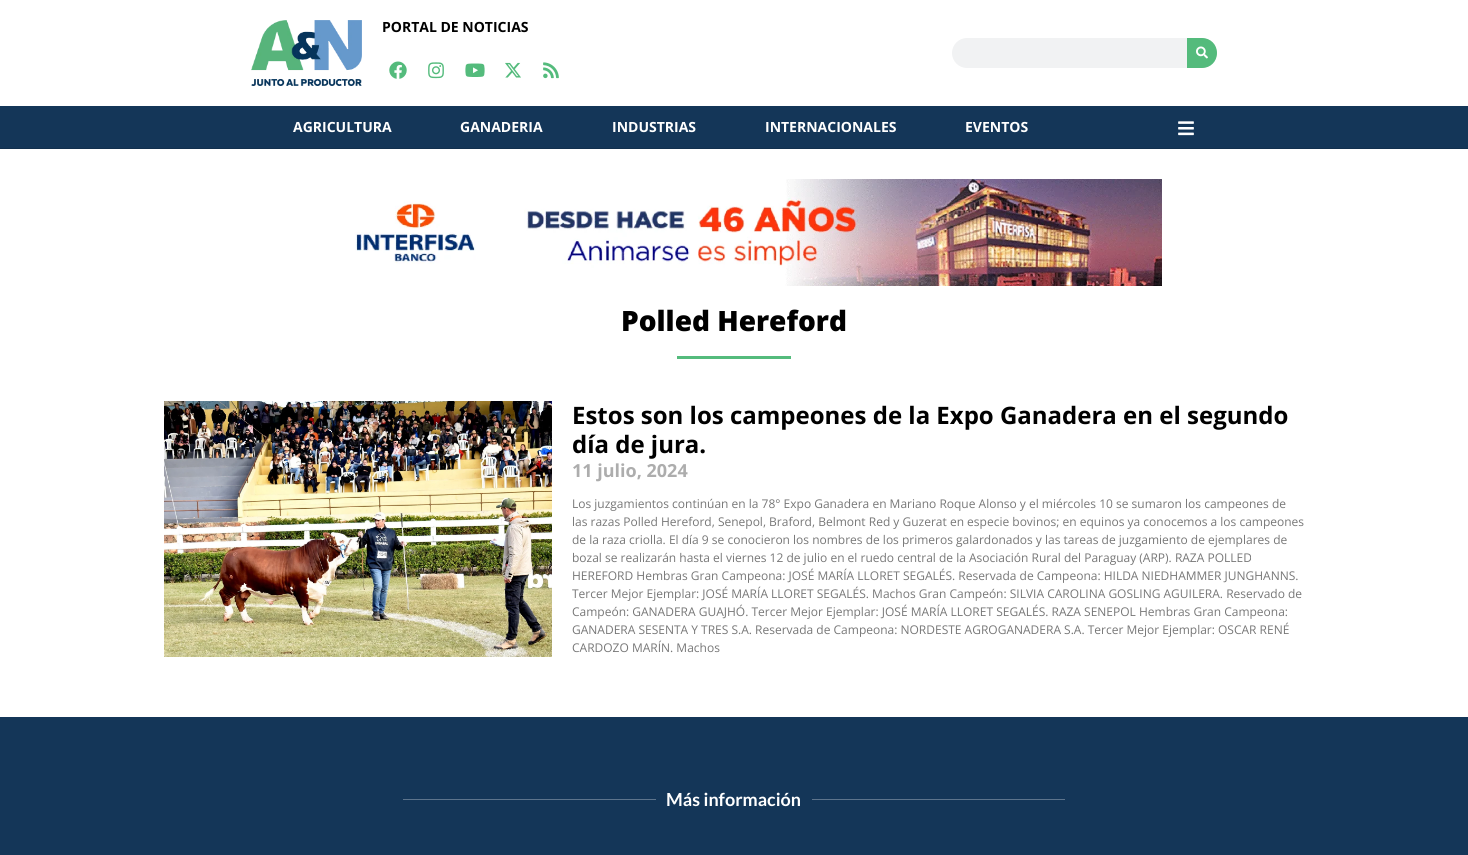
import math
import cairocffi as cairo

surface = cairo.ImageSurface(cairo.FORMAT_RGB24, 1468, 855)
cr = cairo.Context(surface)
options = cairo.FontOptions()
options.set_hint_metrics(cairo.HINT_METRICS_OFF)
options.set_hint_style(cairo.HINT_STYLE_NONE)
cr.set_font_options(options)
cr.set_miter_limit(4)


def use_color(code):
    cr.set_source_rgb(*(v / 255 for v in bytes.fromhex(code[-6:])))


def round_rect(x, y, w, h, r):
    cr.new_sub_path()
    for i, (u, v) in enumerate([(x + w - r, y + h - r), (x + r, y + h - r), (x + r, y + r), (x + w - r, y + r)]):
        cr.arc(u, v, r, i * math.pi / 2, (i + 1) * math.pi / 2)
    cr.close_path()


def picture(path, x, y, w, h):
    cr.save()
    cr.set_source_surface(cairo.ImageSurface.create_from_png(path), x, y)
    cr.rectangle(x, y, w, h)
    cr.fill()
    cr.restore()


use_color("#ffffff")
cr.paint()
picture("img1.png", 251, 20, 111, 66)
cr.select_font_face("Open Sans", cairo.FONT_SLANT_NORMAL, cairo.FONT_WEIGHT_BOLD)
cr.set_font_size(14)
use_color("#000000")
cr.move_to(382, 32)
cr.show_text("PORTAL DE NOTICIAS")
picture("img2.png", 389, 61, 18, 18)
picture("img3.png", 428, 62, 16, 17)
picture("img4.png", 465, 63, 20, 14)
picture("img5.png", 505, 62, 16, 16)
picture("img6.png", 543, 62, 16, 17)
use_color("#f1f2f3")
round_rect(952, 38, 265, 30, 15)
cr.fill()
use_color("#54bb7c")
cr.new_path()
cr.move_to(1187, 38)
cr.line_to(1202, 38)
cr.curve_to(1210.5, 38, 1217, 44.5, 1217, 53)
cr.curve_to(1217, 61.5, 1210.5, 68, 1202, 68)
cr.line_to(1187, 68)
cr.close_path()
cr.fill()
picture("img7.png", 1196, 46, 12, 13)
use_color("#143658")
cr.rectangle(0, 106, 1468, 42)
cr.fill()
use_color("#12304e")
cr.rectangle(0, 148, 1468, 1)
cr.fill()
use_color("#ffffff")
cr.move_to(293, 132)
cr.show_text("AGRICULTURA")
cr.move_to(460, 132)
cr.show_text("GANADERIA")
cr.move_to(612, 132)
cr.show_text("INDUSTRIAS")
cr.move_to(765, 132)
cr.show_text("INTERNACIONALES")
cr.move_to(965, 132)
cr.show_text("EVENTOS")
picture("img8.png", 1178, 121, 16, 15)
picture("img9.png", 306, 179, 856, 107)
cr.select_font_face("Open Sans ExtraBold")
cr.set_font_size(28)
use_color("#000000")
cr.move_to(621, 331)
cr.show_text("Polled Hereford")
use_color("#54bb7c")
cr.rectangle(677, 356, 114, 3)
cr.fill()
picture("img10.png", 164, 401, 388, 256)
cr.select_font_face("Open Sans", cairo.FONT_SLANT_NORMAL, cairo.FONT_WEIGHT_BOLD)
cr.set_font_size(24)
use_color("#000000")
cr.move_to(572, 424)
cr.show_text("Estos son los campeones de la Expo Ganadera en el segundo")
cr.move_to(572, 453)
cr.show_text("día de jura.")
cr.set_font_size(18)
use_color("#adadad")
cr.move_to(572, 477)
cr.show_text("11 julio, 2024")
cr.select_font_face("Open Sans")
cr.set_font_size(12)
use_color("#777777")
cr.move_to(572, 508)
cr.show_text("Los juzgamientos continúan en la 78° Expo Ganadera en Mariano Roque Alonso y el miércoles 10 se sumaron los campeones de")
cr.move_to(572, 526)
cr.show_text("las razas Polled Hereford, Senepol, Braford, Belmont Red y Guzerat en especie bovinos; en equinos ya conocemos a los campeones")
cr.move_to(572, 544)
cr.show_text("de la raza criolla. El día 9 se conocieron los nombres de los primeros galardonados y las tareas de juzgamiento de ejemplares de")
cr.move_to(572, 562)
cr.show_text("bozal se realizarán hasta el viernes 12 de julio en el ruedo central de la Asociación Rural del Paraguay (ARP). RAZA POLLED")
cr.move_to(572, 580)
cr.show_text("HEREFORD Hembras Gran Campeona: JOSÉ MARÍA LLORET SEGALÉS. Reservada de Campeona: HILDA NIEDHAMMER JUNGHANNS.")
cr.move_to(572, 598)
cr.show_text("Tercer Mejor Ejemplar: JOSÉ MARÍA LLORET SEGALÉS. Machos Gran Campeón: SILVIA CAROLINA GOSLING AGUILERA. Reservado de")
cr.move_to(572, 616)
cr.show_text("Campeón: GANADERA GUAJHÓ. Tercer Mejor Ejemplar: JOSÉ MARÍA LLORET SEGALÉS. RAZA SENEPOL Hembras Gran Campeona:")
cr.move_to(572, 634)
cr.show_text("GANADERA SESENTA Y TRES S.A. Reservada de Campeona: NORDESTE AGROGANADERA S.A. Tercer Mejor Ejemplar: OSCAR RENÉ")
cr.move_to(572, 652)
cr.show_text("CARDOZO MARÍN. Machos")
use_color("#143658")
cr.rectangle(0, 717, 1468, 138)
cr.fill()
use_color("#5d748c")
cr.rectangle(403, 799, 253, 1)
cr.fill()
cr.select_font_face("Lato", cairo.FONT_SLANT_NORMAL, cairo.FONT_WEIGHT_BOLD)
cr.set_font_size(18)
use_color("#ffffff")
cr.move_to(666, 806)
cr.show_text("Más información")
use_color("#5d748c")
cr.rectangle(812, 799, 253, 1)
cr.fill()
surface.write_to_png("result.png")
